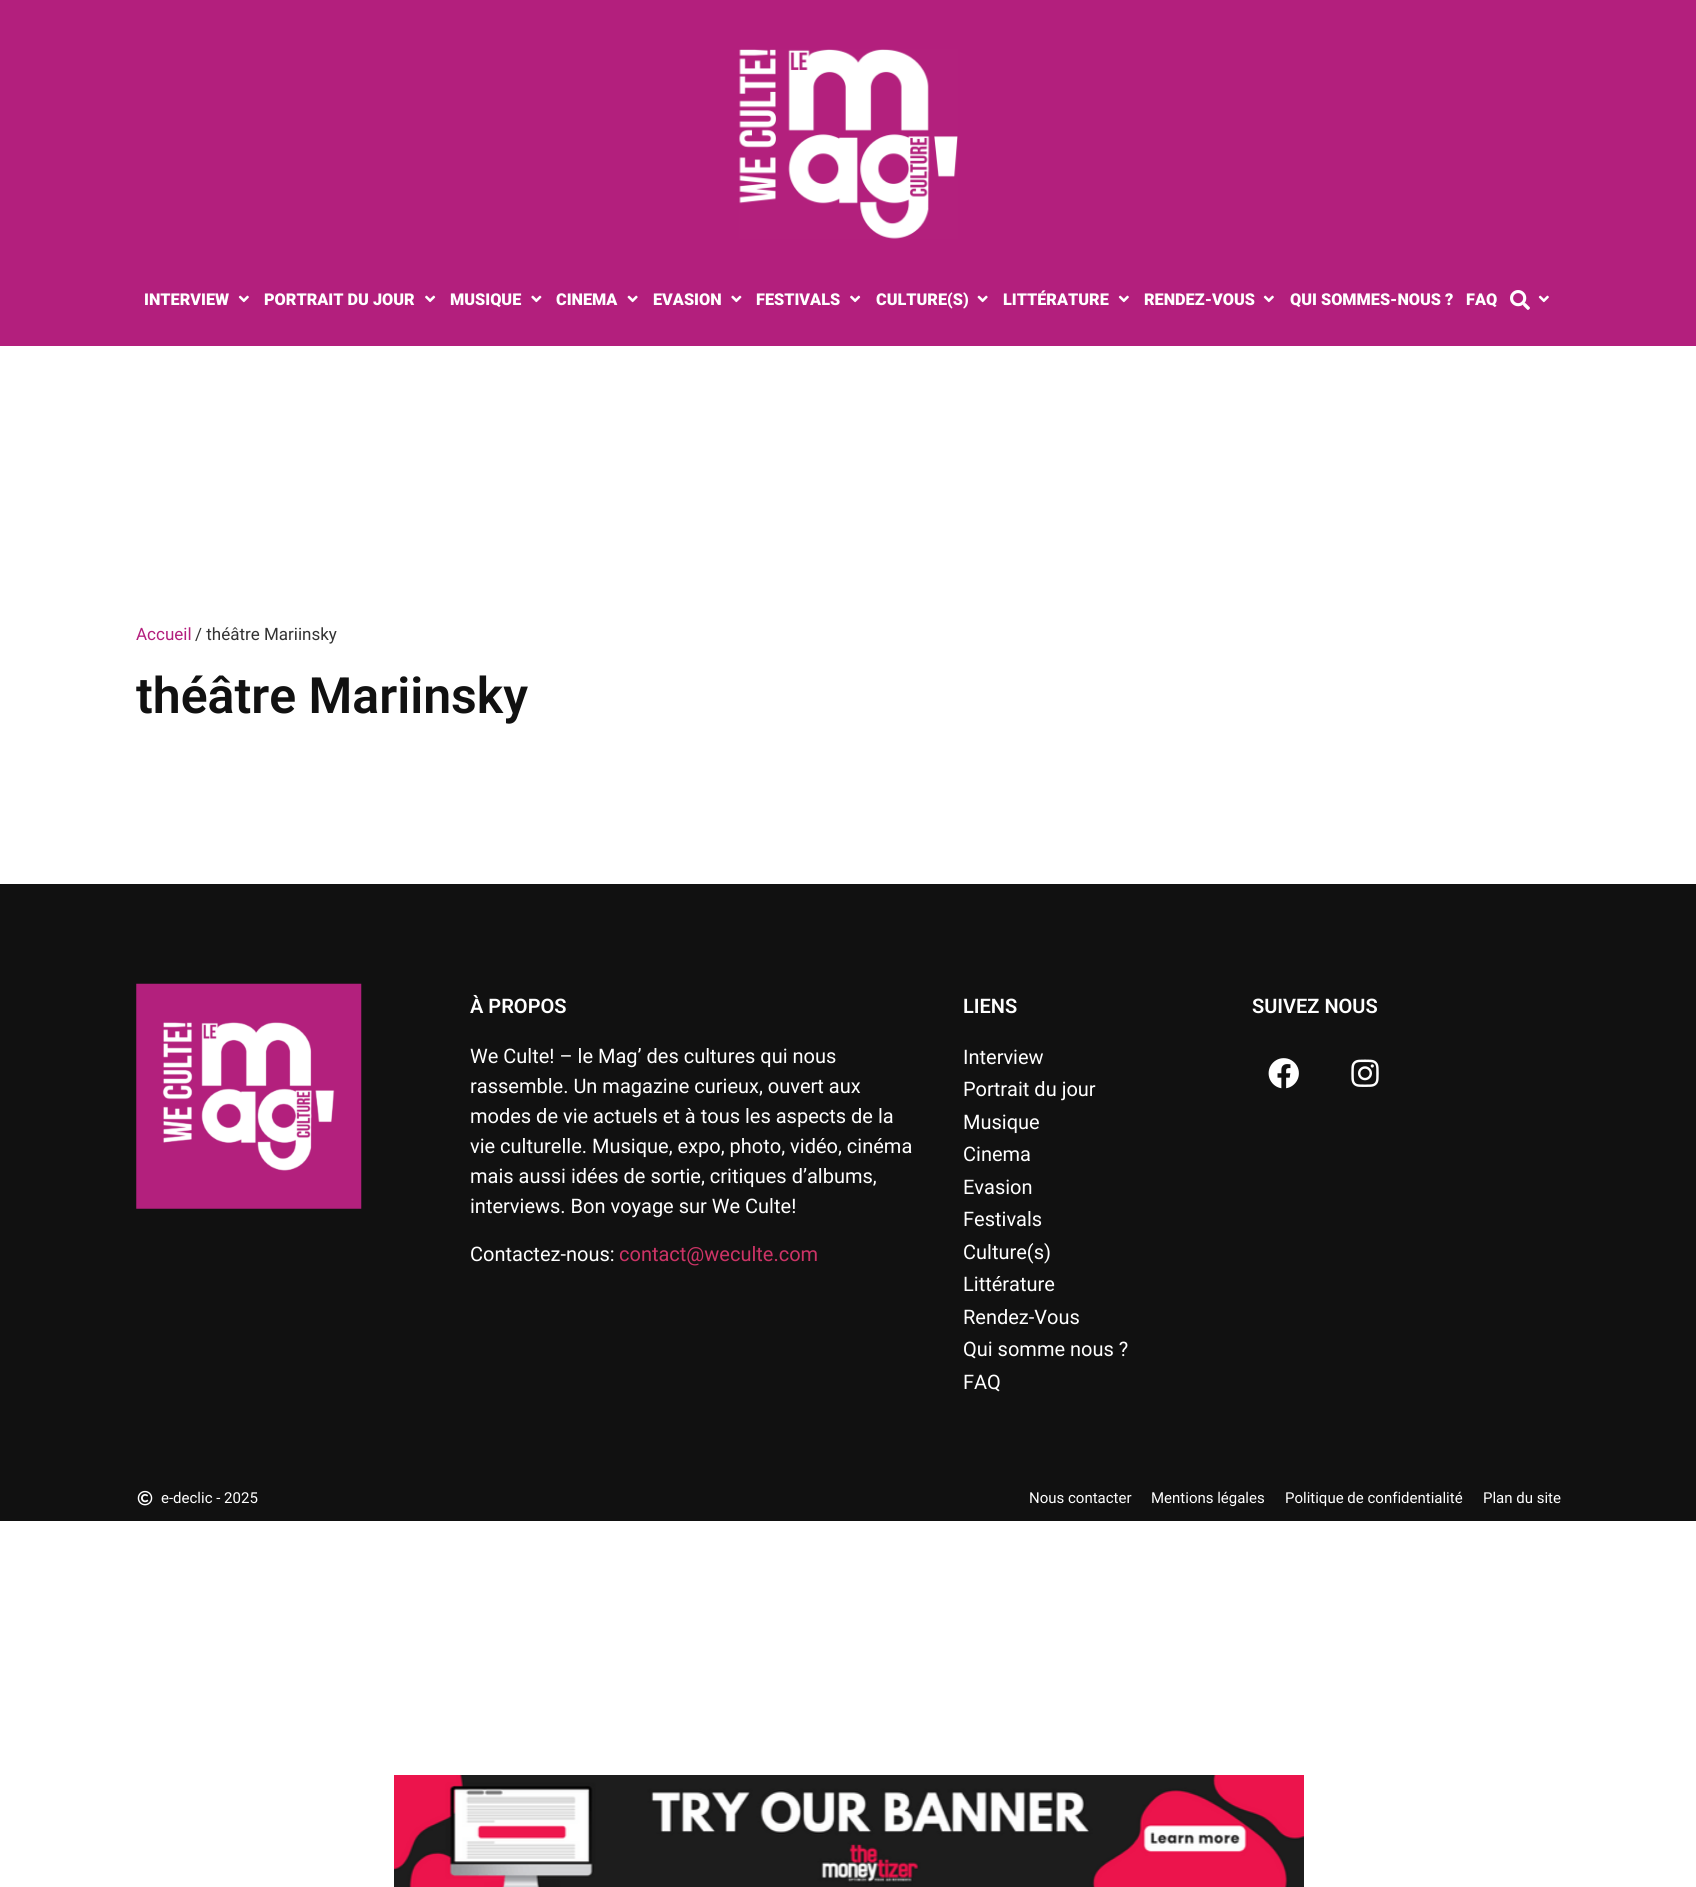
import math
import cairocffi as cairo

surface = cairo.ImageSurface(cairo.FORMAT_RGB24, 1696, 1887)
cr = cairo.Context(surface)
options = cairo.FontOptions()
options.set_hint_metrics(cairo.HINT_METRICS_OFF)
options.set_hint_style(cairo.HINT_STYLE_NONE)
cr.set_font_options(options)
cr.set_miter_limit(4)


def use_color(code):
    cr.set_source_rgb(*(v / 255 for v in bytes.fromhex(code[-6:])))


def picture(path, x, y, w, h):
    cr.save()
    cr.set_source_surface(cairo.ImageSurface.create_from_png(path), x, y)
    cr.rectangle(x, y, w, h)
    cr.fill()
    cr.restore()


use_color("#ffffff")
cr.paint()
use_color("#b31f7d")
cr.rectangle(0, 0, 1696, 346)
cr.fill()
picture("img1.png", 739, 49, 219, 190)
cr.select_font_face("Roboto Black")
cr.set_font_size(16.25)
use_color("#ffffff")
cr.move_to(144, 305)
cr.show_text("INTERVIEW")
picture("img2.png", 238, 295, 11, 8)
cr.move_to(264, 305)
cr.show_text("PORTRAIT DU JOUR")
picture("img3.png", 425, 295, 11, 8)
cr.move_to(450, 305)
cr.show_text("MUSIQUE")
picture("img4.png", 531, 295, 11, 8)
cr.move_to(556, 305)
cr.show_text("CINEMA")
picture("img5.png", 627, 295, 11, 8)
cr.move_to(653, 305)
cr.show_text("EVASION")
picture("img4.png", 731, 295, 11, 8)
cr.move_to(756, 305)
cr.show_text("FESTIVALS")
picture("img3.png", 850, 295, 11, 8)
cr.move_to(876, 305)
cr.show_text("CULTURE(S)")
picture("img5.png", 977, 295, 11, 8)
cr.move_to(1003, 305)
cr.show_text("LITTÉRATURE")
picture("img2.png", 1118, 295, 11, 8)
cr.move_to(1144, 305)
cr.show_text("RENDEZ-VOUS")
picture("img2.png", 1263, 295, 11, 8)
cr.move_to(1290, 305)
cr.show_text("QUI SOMMES-NOUS ?")
cr.move_to(1466, 305)
cr.show_text("FAQ")
picture("img6.png", 1510, 290, 20, 20)
picture("img2.png", 1538, 295, 11, 8)
cr.select_font_face("Roboto")
cr.set_font_size(17)
use_color("#b31f7d")
cr.move_to(136, 640)
cr.show_text("Accueil")
use_color("#333333")
cr.move_to(195, 640)
cr.show_text("/ théâtre Mariinsky")
cr.select_font_face("Roboto SemiBold")
cr.set_font_size(50)
use_color("#111111")
cr.move_to(136, 713)
cr.show_text("théâtre Mariinsky")
cr.rectangle(0, 884, 1696, 637)
cr.fill()
picture("img7.png", 136, 983, 226, 226)
cr.set_font_size(20)
use_color("#ffffff")
cr.move_to(470, 1013)
cr.show_text("À PROPOS")
cr.select_font_face("Roboto")
cr.move_to(470, 1063)
cr.show_text("We Culte! – le Mag’ des cultures qui nous")
cr.move_to(470, 1093)
cr.show_text("rassemble. Un magazine curieux, ouvert aux")
cr.move_to(470, 1123)
cr.show_text("modes de vie actuels et à tous les aspects de la")
cr.move_to(470, 1153)
cr.show_text("vie culturelle. Musique, expo, photo, vidéo, cinéma")
cr.move_to(470, 1183)
cr.show_text("mais aussi idées de sortie, critiques d’albums,")
cr.move_to(470, 1213)
cr.show_text("interviews. Bon voyage sur We Culte!")
cr.move_to(470, 1261)
cr.show_text("Contactez-nous:")
use_color("#cc3366")
cr.move_to(619, 1261)
cr.show_text("contact@weculte.com")
cr.select_font_face("Roboto SemiBold")
use_color("#ffffff")
cr.move_to(963, 1013)
cr.show_text("LIENS")
cr.select_font_face("Roboto")
cr.move_to(963, 1064)
cr.show_text("Interview")
cr.move_to(963, 1096)
cr.show_text("Portrait du jour")
cr.move_to(963, 1129)
cr.show_text("Musique")
cr.move_to(963, 1161)
cr.show_text("Cinema")
cr.move_to(963, 1194)
cr.show_text("Evasion")
cr.move_to(963, 1226)
cr.show_text("Festivals")
cr.move_to(963, 1259)
cr.show_text("Culture(s)")
cr.move_to(963, 1291)
cr.show_text("Littérature")
cr.move_to(963, 1324)
cr.show_text("Rendez-Vous")
cr.move_to(963, 1356)
cr.show_text("Qui somme nous ?")
cr.move_to(963, 1389)
cr.show_text("FAQ")
cr.select_font_face("Roboto SemiBold")
cr.move_to(1252, 1013)
cr.show_text("SUIVEZ NOUS")
picture("img8.png", 1268, 1058, 31, 31)
picture("img9.png", 1351, 1059, 28, 28)
picture("img10.png", 137, 1490, 16, 16)
cr.select_font_face("Roboto")
cr.set_font_size(15)
cr.move_to(161, 1503)
cr.show_text("e-declic - 2025")
cr.move_to(1029, 1503)
cr.show_text("Nous contacter")
cr.move_to(1151, 1503)
cr.show_text("Mentions légales")
cr.move_to(1285, 1503)
cr.show_text("Politique de confidentialité")
cr.move_to(1483, 1503)
cr.show_text("Plan du site")
picture("img11.png", 394, 1775, 910, 112)
surface.write_to_png("result.png")
